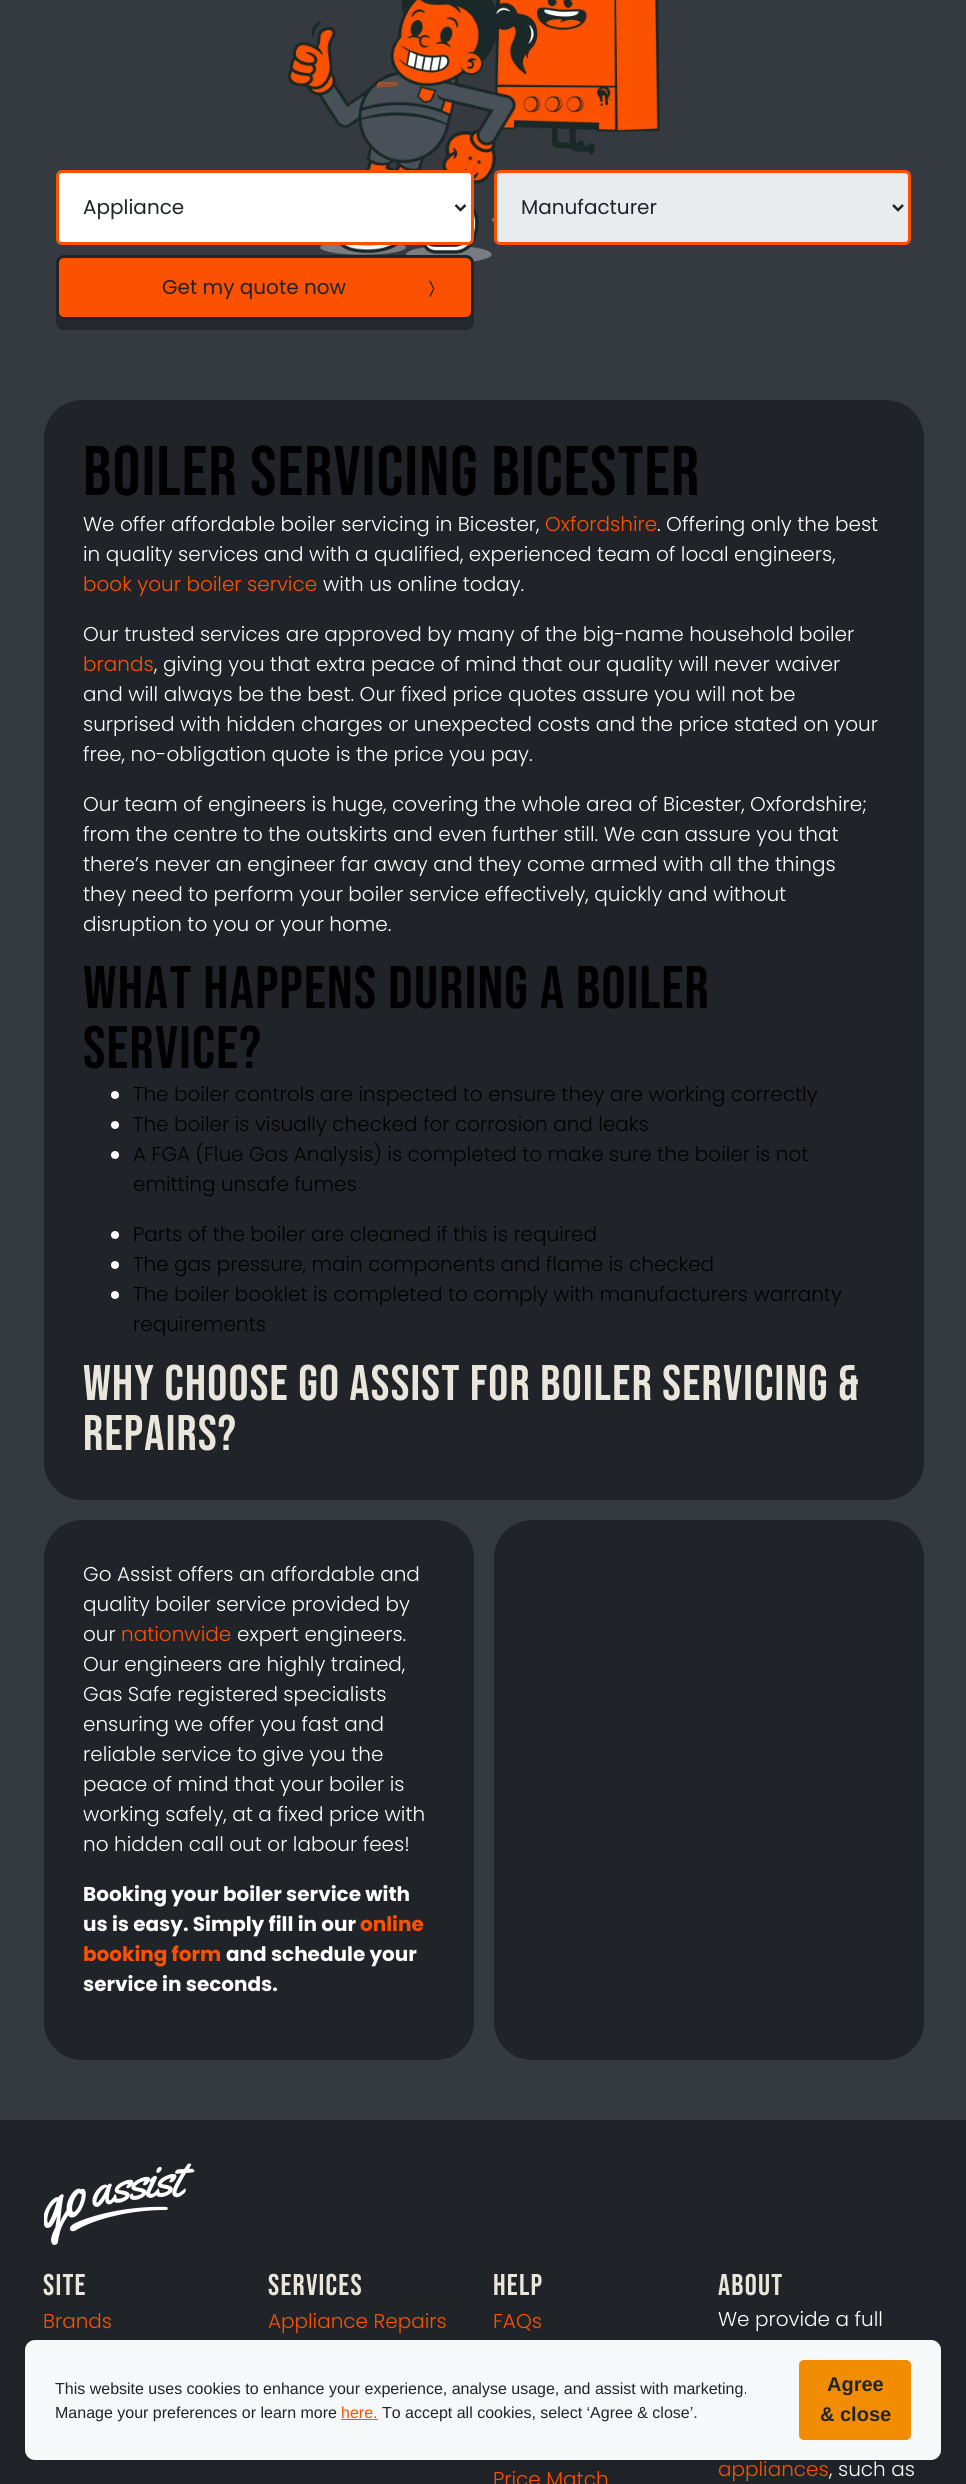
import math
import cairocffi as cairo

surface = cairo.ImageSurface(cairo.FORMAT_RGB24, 966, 2484)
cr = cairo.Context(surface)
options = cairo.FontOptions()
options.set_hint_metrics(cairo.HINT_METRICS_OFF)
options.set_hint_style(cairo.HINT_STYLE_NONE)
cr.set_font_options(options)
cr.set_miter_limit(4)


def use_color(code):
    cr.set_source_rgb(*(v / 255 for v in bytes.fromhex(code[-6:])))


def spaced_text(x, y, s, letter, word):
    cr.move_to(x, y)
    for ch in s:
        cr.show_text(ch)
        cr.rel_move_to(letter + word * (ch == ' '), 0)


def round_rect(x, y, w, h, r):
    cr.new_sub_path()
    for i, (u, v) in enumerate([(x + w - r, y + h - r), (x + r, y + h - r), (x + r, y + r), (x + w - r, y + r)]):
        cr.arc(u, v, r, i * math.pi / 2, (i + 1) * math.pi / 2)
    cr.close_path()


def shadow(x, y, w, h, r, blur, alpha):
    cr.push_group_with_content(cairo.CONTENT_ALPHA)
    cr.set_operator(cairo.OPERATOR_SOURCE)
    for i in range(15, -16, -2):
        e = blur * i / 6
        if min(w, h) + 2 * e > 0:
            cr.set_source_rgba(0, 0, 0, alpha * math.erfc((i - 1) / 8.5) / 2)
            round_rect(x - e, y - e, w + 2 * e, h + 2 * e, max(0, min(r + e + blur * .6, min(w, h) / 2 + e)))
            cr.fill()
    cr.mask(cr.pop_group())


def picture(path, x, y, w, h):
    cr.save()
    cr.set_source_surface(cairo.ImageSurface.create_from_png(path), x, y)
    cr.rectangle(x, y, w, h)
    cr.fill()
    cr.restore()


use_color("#343a40")
cr.paint()
picture("img1.png", 288, 0, 372, 262)
use_color("#ffffff")
round_rect(57.5, 171.5, 415, 72, 4.5)
cr.fill_preserve()
use_color("#fc5100")
cr.set_line_width(3)
cr.stroke()
cr.new_path()
cr.move_to(455.5, 205)
cr.line_to(460.5, 210)
cr.line_to(465.5, 205)
use_color("#202428")
cr.set_line_width(2.5)
cr.stroke()
cr.select_font_face("Poppins")
cr.set_font_size(20)
cr.move_to(83, 214)
cr.show_text("Appliance")
use_color("#e9ecef")
round_rect(495.5, 171.5, 414, 72, 4.5)
cr.fill_preserve()
use_color("#fc5100")
cr.set_line_width(3)
cr.stroke()
cr.new_path()
cr.move_to(893, 205)
cr.line_to(898, 210)
cr.line_to(903, 205)
use_color("#202428")
cr.set_line_width(2.5)
cr.stroke()
cr.move_to(521, 214)
cr.show_text("Manufacturer")
use_color("#24282c")
cr.new_path()
cr.move_to(56, 271)
cr.line_to(56, 322)
cr.curve_to(56, 326, 60, 330, 64, 330)
cr.line_to(466, 330)
cr.curve_to(470, 330, 474, 326, 474, 322)
cr.line_to(474, 271)
cr.line_to(474, 312)
cr.curve_to(474, 317, 470, 320, 466, 320)
cr.line_to(64, 320)
cr.curve_to(60, 320, 56, 317, 56, 312)
cr.close_path()
cr.fill()
use_color("#fc5100")
round_rect(57.5, 256.5, 415, 62, 6.5)
cr.fill_preserve()
use_color("#202428")
cr.set_line_width(3)
cr.stroke()
cr.move_to(162, 294)
cr.show_text("Get my quote now")
picture("img2.png", 429, 280, 6, 17)
round_rect(44, 400, 880, 1100, 38)
cr.fill()
cr.select_font_face("Bebas Neue")
cr.set_font_size(70)
use_color("#000000")
spaced_text(83, 495, "Boiler servicing Bicester", 1.25, 0)
cr.select_font_face("Poppins Light")
cr.set_font_size(20)
use_color("#ffffff")
cr.move_to(83, 531)
cr.show_text("We offer affordable boiler servicing in Bicester,")
use_color("#fc5100")
cr.move_to(545, 531)
cr.show_text("Oxfordshire")
use_color("#ffffff")
cr.move_to(657, 531)
cr.show_text(". Offering only the best")
cr.move_to(83, 561)
cr.show_text("in quality services and with a qualified, experienced team of local engineers,")
use_color("#fc5100")
cr.move_to(83, 591)
cr.show_text("book your boiler service")
use_color("#ffffff")
cr.move_to(323, 591)
cr.show_text("with us online today.")
cr.move_to(83, 641)
cr.show_text("Our trusted services are approved by many of the big-name household boiler")
use_color("#fc5100")
cr.move_to(83, 671)
cr.show_text("brands")
use_color("#ffffff")
cr.move_to(154, 671)
cr.show_text(", giving you that extra peace of mind that our quality will never waiver")
cr.move_to(83, 701)
cr.show_text("and will always be the best. Our fixed price quotes assure you will not be")
cr.move_to(83, 731)
cr.show_text("surprised with hidden charges or unexpected costs and the price stated on your")
cr.move_to(83, 761)
cr.show_text("free, no-obligation quote is the price you pay.")
cr.move_to(83, 811)
cr.show_text("Our team of engineers is huge, covering the whole area of Bicester, Oxfordshire;")
cr.move_to(83, 841)
cr.show_text("from the centre to the outskirts and even further still. We can assure you that")
cr.move_to(83, 871)
cr.show_text("there’s never an engineer far away and they come armed with all the things")
cr.move_to(83, 901)
cr.show_text("they need to perform your boiler service effectively, quickly and without")
cr.move_to(83, 931)
cr.show_text("disruption to you or your home.")
cr.select_font_face("Bebas Neue")
cr.set_font_size(60)
use_color("#000000")
spaced_text(83, 1008, "What happens during a boiler", 1.25, 0)
spaced_text(83, 1068, "service?", 1.25, 0)
use_color("#ffffff")
cr.new_path()
cr.arc(115, 1095, 4, 0, 2 * math.pi)
cr.fill()
cr.select_font_face("Poppins Light")
cr.set_font_size(20)
use_color("#000000")
cr.move_to(133, 1101)
cr.show_text("The boiler controls are inspected to ensure they are working correctly")
use_color("#ffffff")
cr.new_path()
cr.arc(115, 1125, 4, 0, 2 * math.pi)
cr.fill()
use_color("#000000")
cr.move_to(133, 1131)
cr.show_text("The boiler is visually checked for corrosion and leaks")
use_color("#ffffff")
cr.new_path()
cr.arc(115, 1155, 4, 0, 2 * math.pi)
cr.fill()
use_color("#000000")
cr.move_to(133, 1161)
cr.show_text("A FGA (Flue Gas Analysis) is completed to make sure the boiler is not")
cr.move_to(133, 1191)
cr.show_text("emitting unsafe fumes")
use_color("#ffffff")
cr.new_path()
cr.arc(115, 1235, 4, 0, 2 * math.pi)
cr.fill()
use_color("#000000")
cr.move_to(133, 1241)
cr.show_text("Parts of the boiler are cleaned if this is required")
use_color("#ffffff")
cr.new_path()
cr.arc(115, 1265, 4, 0, 2 * math.pi)
cr.fill()
use_color("#000000")
cr.move_to(133, 1271)
cr.show_text("The gas pressure, main components and flame is checked")
use_color("#ffffff")
cr.new_path()
cr.arc(115, 1295, 4, 0, 2 * math.pi)
cr.fill()
use_color("#000000")
cr.move_to(133, 1301)
cr.show_text("The boiler booklet is completed to comply with manufacturers warranty")
cr.move_to(133, 1331)
cr.show_text("requirements")
cr.select_font_face("Bebas Neue")
cr.set_font_size(50)
use_color("#eae6db")
spaced_text(83, 1400, "Why choose Go Assist for boiler servicing &", 1.25, 0)
spaced_text(83, 1450, "repairs?", 1.25, 0)
use_color("#202428")
round_rect(44, 1520, 430, 540, 38)
cr.fill()
cr.select_font_face("Poppins Light")
cr.set_font_size(20)
use_color("#ffffff")
cr.move_to(83, 1581)
cr.show_text("Go Assist offers an affordable and")
cr.move_to(83, 1611)
cr.show_text("quality boiler service provided by")
cr.move_to(83, 1641)
cr.show_text("our")
use_color("#fc5100")
cr.move_to(121, 1641)
cr.show_text("nationwide")
use_color("#ffffff")
cr.move_to(237, 1641)
cr.show_text("expert engineers.")
cr.move_to(83, 1671)
cr.show_text("Our engineers are highly trained,")
cr.move_to(83, 1701)
cr.show_text("Gas Safe registered specialists")
cr.move_to(83, 1731)
cr.show_text("ensuring we offer you fast and")
cr.move_to(83, 1761)
cr.show_text("reliable service to give you the")
cr.move_to(83, 1791)
cr.show_text("peace of mind that your boiler is")
cr.move_to(83, 1821)
cr.show_text("working safely, at a fixed price with")
cr.move_to(83, 1851)
cr.show_text("no hidden call out or labour fees!")
cr.select_font_face("Poppins", cairo.FONT_SLANT_NORMAL, cairo.FONT_WEIGHT_BOLD)
cr.move_to(83, 1901)
cr.show_text("Booking your boiler service with")
cr.move_to(83, 1931)
cr.show_text("us is easy. Simply fill in our")
use_color("#fc5100")
cr.move_to(360, 1931)
cr.show_text("online")
cr.move_to(83, 1961)
cr.show_text("booking form")
use_color("#ffffff")
cr.move_to(226, 1961)
cr.show_text("and schedule your")
cr.move_to(83, 1991)
cr.show_text("service in seconds.")
use_color("#202428")
round_rect(494, 1520, 430, 540, 38)
cr.fill()
cr.rectangle(0, 2120, 966, 364)
cr.fill()
picture("img3.png", 44, 2163, 151, 82)
cr.select_font_face("Bebas Neue")
cr.set_font_size(30)
use_color("#eae6db")
spaced_text(43, 2295, "Site", 1.25, 0)
cr.select_font_face("Poppins Light")
cr.set_font_size(20)
use_color("#fc5100")
cr.move_to(43, 2328)
cr.show_text("Brands")
cr.select_font_face("Bebas Neue")
cr.set_font_size(30)
use_color("#eae6db")
spaced_text(268, 2295, "Services", 1.25, 0)
cr.select_font_face("Poppins Light")
cr.set_font_size(20)
use_color("#fc5100")
cr.move_to(268, 2328)
cr.show_text("Appliance Repairs")
cr.select_font_face("Bebas Neue")
cr.set_font_size(30)
use_color("#eae6db")
spaced_text(493, 2295, "Help", 1.25, 0)
cr.select_font_face("Poppins Light")
cr.set_font_size(20)
use_color("#fc5100")
cr.move_to(493, 2328)
cr.show_text("FAQs")
cr.move_to(493, 2486)
cr.show_text("Price Match")
cr.select_font_face("Bebas Neue")
cr.set_font_size(30)
use_color("#eae6db")
spaced_text(718, 2295, "About", 1.25, 0)
cr.select_font_face("Poppins Light")
cr.set_font_size(20)
use_color("#ffffff")
cr.move_to(718, 2326)
cr.show_text("We provide a full")
use_color("#fc5100")
cr.move_to(718, 2476)
cr.show_text("appliances")
use_color("#ffffff")
cr.move_to(829, 2476)
cr.show_text(", such as")
use_color("#000000")
shadow(25, 2345, 916, 120, 10, 5, 0.1)
use_color("#f5f9f9")
round_rect(25, 2340, 916, 120, 10)
cr.fill()
cr.select_font_face("Liberation Sans")
cr.set_font_size(16)
use_color("#202428")
cr.move_to(55, 2394)
cr.show_text("This website uses cookies to enhance your experience, analyse usage, and assist with marketing.")
cr.move_to(55, 2418)
cr.show_text("Manage your preferences or learn more")
use_color("#fc5100")
cr.move_to(341, 2418)
cr.show_text("here.")
cr.rectangle(341, 2419, 37, 1)
cr.fill()
use_color("#202428")
cr.move_to(382, 2418)
cr.show_text("To accept all cookies, select ‘Agree & close’.")
use_color("#f28c00")
round_rect(799, 2360, 112, 80, 5)
cr.fill()
cr.select_font_face("Liberation Sans", cairo.FONT_SLANT_NORMAL, cairo.FONT_WEIGHT_BOLD)
cr.set_font_size(20)
use_color("#202428")
cr.move_to(827, 2391)
cr.show_text("Agree")
cr.move_to(820, 2421)
cr.show_text("& close")
surface.write_to_png("result.png")
